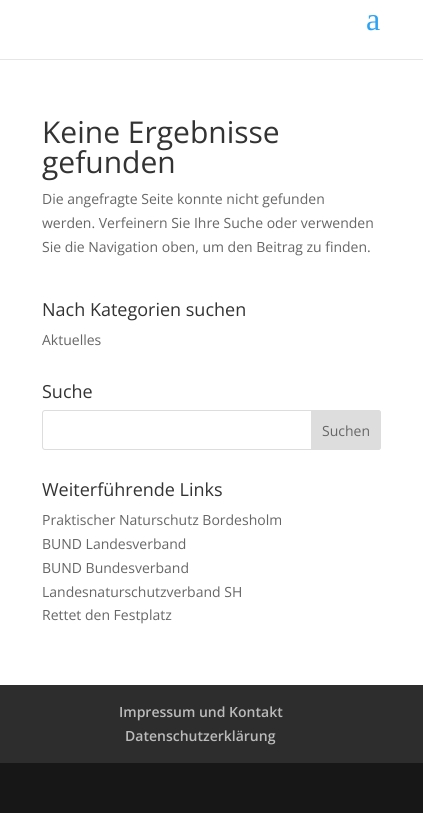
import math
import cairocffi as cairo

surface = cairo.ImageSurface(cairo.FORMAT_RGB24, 423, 813)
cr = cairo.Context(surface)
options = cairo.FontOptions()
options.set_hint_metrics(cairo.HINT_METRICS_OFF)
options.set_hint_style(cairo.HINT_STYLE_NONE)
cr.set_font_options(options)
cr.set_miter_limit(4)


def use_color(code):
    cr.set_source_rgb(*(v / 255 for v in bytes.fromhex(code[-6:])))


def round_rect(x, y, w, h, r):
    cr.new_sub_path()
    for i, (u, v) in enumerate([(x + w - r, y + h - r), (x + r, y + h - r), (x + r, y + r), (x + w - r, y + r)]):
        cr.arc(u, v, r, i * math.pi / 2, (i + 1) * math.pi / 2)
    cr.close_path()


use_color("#ffffff")
cr.paint()
use_color("#e6e6e6")
cr.rectangle(0, 59, 423, 1)
cr.fill()
cr.select_font_face("Liberation Serif")
cr.set_font_size(32)
use_color("#2ea3f2")
cr.move_to(366, 30)
cr.show_text("a")
cr.select_font_face("Open Sans")
cr.set_font_size(30)
use_color("#333333")
cr.move_to(42, 143)
cr.show_text("Keine Ergebnisse")
cr.move_to(42, 173)
cr.show_text("gefunden")
cr.set_font_size(14)
use_color("#666666")
cr.move_to(42, 204)
cr.show_text("Die angefragte Seite konnte nicht gefunden")
cr.move_to(42, 228)
cr.show_text("werden. Verfeinern Sie Ihre Suche oder verwenden")
cr.move_to(42, 252)
cr.show_text("Sie die Navigation oben, um den Beitrag zu finden.")
cr.set_font_size(18)
use_color("#333333")
cr.move_to(42, 316)
cr.show_text("Nach Kategorien suchen")
cr.set_font_size(14)
use_color("#666666")
cr.move_to(42, 345)
cr.show_text("Aktuelles")
cr.set_font_size(18)
use_color("#333333")
cr.move_to(42, 398)
cr.show_text("Suche")
round_rect(42.5, 410.5, 338, 39, 2.5)
use_color("#dddddd")
cr.set_line_width(1)
cr.stroke()
cr.new_path()
cr.move_to(311.5, 410.5)
cr.line_to(378, 410.5)
cr.curve_to(379.5, 410.5, 380.5, 411.5, 380.5, 413)
cr.line_to(380.5, 447)
cr.curve_to(380.5, 448.5, 379.5, 449.5, 378, 449.5)
cr.line_to(311.5, 449.5)
cr.close_path()
cr.fill_preserve()
cr.stroke()
cr.set_font_size(14)
use_color("#666666")
cr.move_to(322, 436)
cr.show_text("Suchen")
cr.set_font_size(18)
use_color("#333333")
cr.move_to(42, 496)
cr.show_text("Weiterführende Links")
cr.set_font_size(14)
use_color("#666666")
cr.move_to(42, 525)
cr.show_text("Praktischer Naturschutz Bordesholm")
cr.move_to(42, 549)
cr.show_text("BUND Landesverband")
cr.move_to(42, 573)
cr.show_text("BUND Bundesverband")
cr.move_to(42, 597)
cr.show_text("Landesnaturschutzverband SH")
cr.move_to(42, 620)
cr.show_text("Rettet den Festplatz")
use_color("#2d2d2d")
cr.rectangle(0, 685, 423, 78)
cr.fill()
cr.select_font_face("Open Sans SemiBold")
use_color("#bbbbbb")
cr.move_to(119, 717)
cr.show_text("Impressum und Kontakt")
cr.move_to(125, 741)
cr.show_text("Datenschutzerklärung")
use_color("#171717")
cr.rectangle(0, 763, 423, 50)
cr.fill()
surface.write_to_png("result.png")
